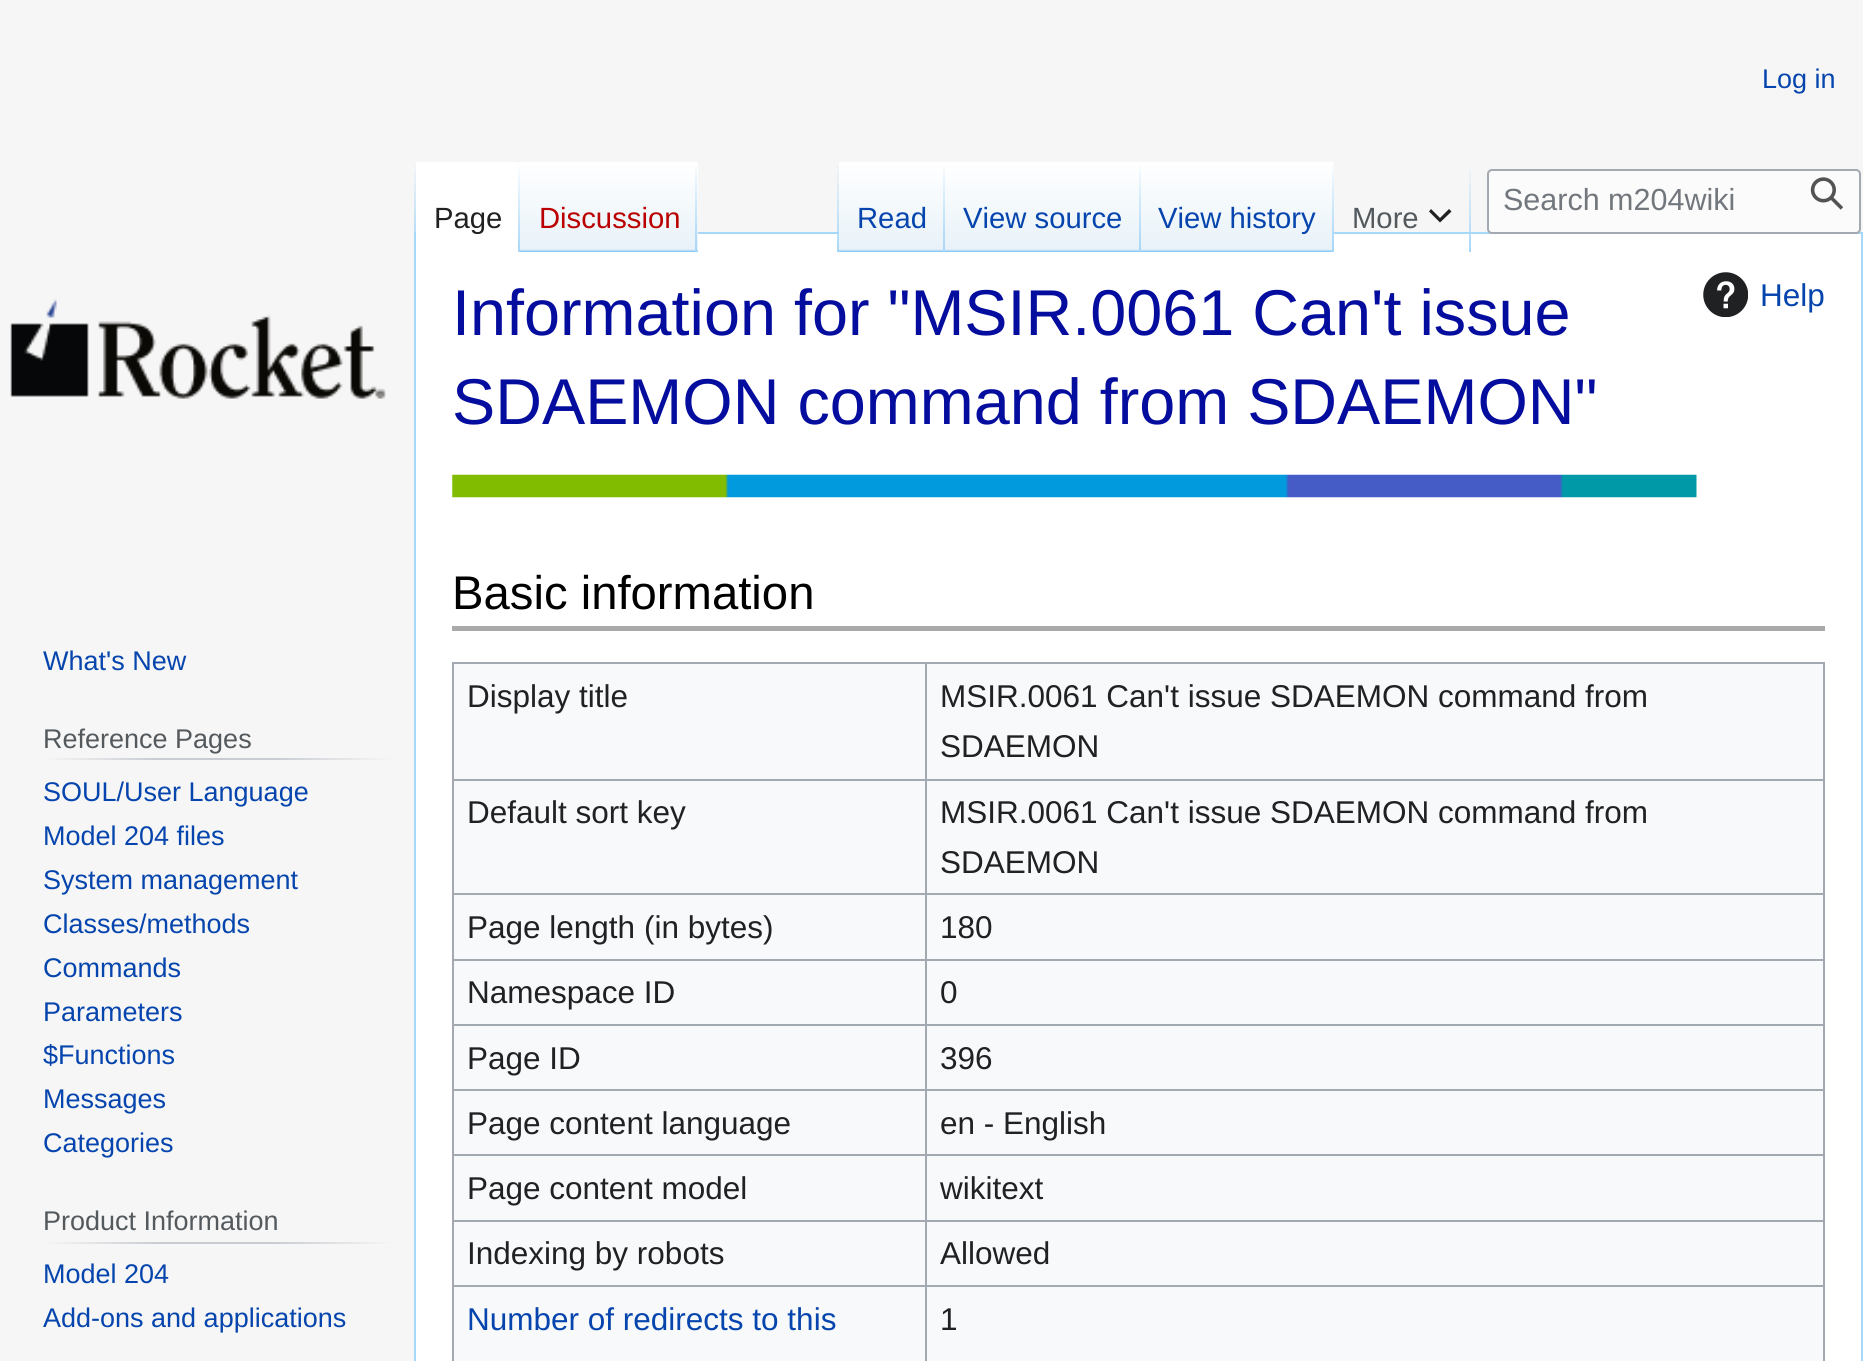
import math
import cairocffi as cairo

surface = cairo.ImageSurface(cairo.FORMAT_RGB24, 1863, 1361)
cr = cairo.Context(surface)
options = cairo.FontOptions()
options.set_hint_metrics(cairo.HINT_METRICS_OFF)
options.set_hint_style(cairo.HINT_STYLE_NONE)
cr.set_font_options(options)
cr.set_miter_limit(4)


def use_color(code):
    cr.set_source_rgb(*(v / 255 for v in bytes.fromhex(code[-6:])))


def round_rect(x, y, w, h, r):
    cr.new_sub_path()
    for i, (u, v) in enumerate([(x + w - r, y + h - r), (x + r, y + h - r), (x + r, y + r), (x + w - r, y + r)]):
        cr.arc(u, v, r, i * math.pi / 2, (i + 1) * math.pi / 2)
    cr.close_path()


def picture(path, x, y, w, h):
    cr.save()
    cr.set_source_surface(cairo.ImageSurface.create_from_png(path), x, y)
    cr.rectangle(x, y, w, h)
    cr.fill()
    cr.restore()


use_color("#f6f6f6")
cr.paint()
cr.select_font_face("Liberation Sans")
cr.set_font_size(27)
use_color("#0645ad")
cr.move_to(1762, 88)
cr.show_text("Log in")
gradient = cairo.LinearGradient(415, 162, 415, 252)
gradient.add_color_stop_rgba(0, 0.655, 0.843, 0.976, 0)
gradient.add_color_stop_rgba(1, 0.655, 0.843, 0.976, 1)
cr.set_source(gradient)
cr.rectangle(414, 162, 2, 70)
cr.fill()
use_color("#ffffff")
cr.rectangle(415, 233, 1447, 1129)
cr.fill_preserve()
use_color("#a7d7f9")
cr.stroke()
use_color("#ffffff")
cr.rectangle(416, 162, 102, 72)
cr.fill()
gradient = cairo.LinearGradient(519, 162, 519, 252)
gradient.add_color_stop_rgba(0, 1, 1, 1, 1)
gradient.add_color_stop_rgba(1, 0.655, 0.843, 0.976, 1)
cr.set_source(gradient)
cr.rectangle(518, 162, 2, 90)
cr.fill()
cr.set_font_size(29.25)
use_color("#202122")
cr.move_to(434, 228)
cr.show_text("Page")
gradient = cairo.LinearGradient(609, 252, 609, 162)
gradient.add_color_stop_rgba(0, 0.467, 0.757, 0.965, 1)
gradient.add_color_stop_rgba(0.03, 0.91, 0.949, 0.973, 1)
gradient.add_color_stop_rgba(1, 1, 1, 1, 1)
cr.set_source(gradient)
cr.rectangle(520, 162, 178, 90)
cr.fill()
gradient = cairo.LinearGradient(696, 162, 696, 252)
gradient.add_color_stop_rgba(0, 0.655, 0.843, 0.976, 0)
gradient.add_color_stop_rgba(1, 0.655, 0.843, 0.976, 1)
cr.set_source(gradient)
cr.rectangle(695, 162, 2, 90)
cr.fill()
use_color("#ba0000")
cr.move_to(539, 228)
cr.show_text("Discussion")
cr.set_source_rgba(1, 1, 1, 0.5)
round_rect(1488, 170, 372, 63, 4)
cr.fill_preserve()
use_color("#a2a9b1")
cr.stroke()
cr.set_font_size(30.5)
use_color("#72777d")
cr.move_to(1503, 210)
cr.show_text("Search m204wiki")
picture("img1.png", 1810, 177, 34, 33)
gradient = cairo.LinearGradient(838, 162, 838, 252)
gradient.add_color_stop_rgba(0, 0.655, 0.843, 0.976, 0)
gradient.add_color_stop_rgba(1, 0.655, 0.843, 0.976, 1)
cr.set_source(gradient)
cr.rectangle(837, 162, 2, 90)
cr.fill()
gradient = cairo.LinearGradient(892, 252, 892, 162)
gradient.add_color_stop_rgba(0, 0.467, 0.757, 0.965, 1)
gradient.add_color_stop_rgba(0.03, 0.91, 0.949, 0.973, 1)
gradient.add_color_stop_rgba(1, 1, 1, 1, 1)
cr.set_source(gradient)
cr.rectangle(839, 162, 106, 90)
cr.fill()
gradient = cairo.LinearGradient(944, 162, 944, 252)
gradient.add_color_stop_rgba(0, 0.655, 0.843, 0.976, 0)
gradient.add_color_stop_rgba(1, 0.655, 0.843, 0.976, 1)
cr.set_source(gradient)
cr.rectangle(943, 162, 2, 90)
cr.fill()
cr.set_font_size(29.25)
use_color("#0645ad")
cr.move_to(857, 228)
cr.show_text("Read")
gradient = cairo.LinearGradient(1043, 252, 1043, 162)
gradient.add_color_stop_rgba(0, 0.467, 0.757, 0.965, 1)
gradient.add_color_stop_rgba(0.03, 0.91, 0.949, 0.973, 1)
gradient.add_color_stop_rgba(1, 1, 1, 1, 1)
cr.set_source(gradient)
cr.rectangle(945, 162, 196, 90)
cr.fill()
gradient = cairo.LinearGradient(1140, 162, 1140, 252)
gradient.add_color_stop_rgba(0, 0.655, 0.843, 0.976, 0)
gradient.add_color_stop_rgba(1, 0.655, 0.843, 0.976, 1)
cr.set_source(gradient)
cr.rectangle(1139, 162, 2, 90)
cr.fill()
use_color("#0645ad")
cr.move_to(963, 228)
cr.show_text("View source")
gradient = cairo.LinearGradient(1238, 252, 1238, 162)
gradient.add_color_stop_rgba(0, 0.467, 0.757, 0.965, 1)
gradient.add_color_stop_rgba(0.03, 0.91, 0.949, 0.973, 1)
gradient.add_color_stop_rgba(1, 1, 1, 1, 1)
cr.set_source(gradient)
cr.rectangle(1141, 162, 193, 90)
cr.fill()
gradient = cairo.LinearGradient(1333, 162, 1333, 252)
gradient.add_color_stop_rgba(0, 0.655, 0.843, 0.976, 0)
gradient.add_color_stop_rgba(1, 0.655, 0.843, 0.976, 1)
cr.set_source(gradient)
cr.rectangle(1332, 162, 2, 90)
cr.fill()
use_color("#0645ad")
cr.move_to(1158, 228)
cr.show_text("View history")
gradient = cairo.LinearGradient(1470, 162, 1470, 252)
gradient.add_color_stop_rgba(0, 0.655, 0.843, 0.976, 0)
gradient.add_color_stop_rgba(1, 0.655, 0.843, 0.976, 1)
cr.set_source(gradient)
cr.rectangle(1469, 162, 2, 90)
cr.fill()
use_color("#54595d")
cr.move_to(1352, 228)
cr.show_text("More")
use_color("#202122")
cr.new_path()
cr.move_to(1451.5, 211.5)
cr.line_to(1449, 209)
cr.line_to(1440, 218)
cr.line_to(1431, 209)
cr.line_to(1429, 211.5)
cr.line_to(1440, 222.5)
cr.close_path()
cr.fill()
picture("img2.png", 10, 299, 376, 100)
cr.set_font_size(27)
use_color("#0645ad")
cr.move_to(43, 670)
cr.show_text("What's New")
gradient = cairo.LinearGradient(43, 759, 392, 759)
gradient.add_color_stop_rgba(0, 0.965, 0.965, 0.965, 1)
gradient.add_color_stop_rgba(0.33, 0.784, 0.8, 0.82, 1)
gradient.add_color_stop_rgba(0.66, 0.784, 0.8, 0.82, 1)
gradient.add_color_stop_rgba(1, 0.965, 0.965, 0.965, 1)
cr.set_source(gradient)
cr.rectangle(43, 758, 349, 2)
cr.fill()
use_color("#54595d")
cr.move_to(43, 748)
cr.show_text("Reference Pages")
use_color("#0645ad")
cr.move_to(43, 801)
cr.show_text("SOUL/User Language")
cr.move_to(43, 845)
cr.show_text("Model 204 files")
cr.move_to(43, 889)
cr.show_text("System management")
cr.move_to(43, 933)
cr.show_text("Classes/methods")
cr.move_to(43, 977)
cr.show_text("Commands")
cr.move_to(43, 1021)
cr.show_text("Parameters")
cr.move_to(43, 1064)
cr.show_text("$Functions")
cr.move_to(43, 1108)
cr.show_text("Messages")
cr.move_to(43, 1152)
cr.show_text("Categories")
gradient = cairo.LinearGradient(43, 1243, 392, 1243)
gradient.add_color_stop_rgba(0, 0.965, 0.965, 0.965, 1)
gradient.add_color_stop_rgba(0.33, 0.784, 0.8, 0.82, 1)
gradient.add_color_stop_rgba(0.66, 0.784, 0.8, 0.82, 1)
gradient.add_color_stop_rgba(1, 0.965, 0.965, 0.965, 1)
cr.set_source(gradient)
cr.rectangle(43, 1242, 349, 2)
cr.fill()
use_color("#54595d")
cr.move_to(43, 1230)
cr.show_text("Product Information")
use_color("#0645ad")
cr.move_to(43, 1283)
cr.show_text("Model 204")
cr.move_to(43, 1327)
cr.show_text("Add-ons and applications")
picture("img3.png", 452, 474, 1245, 24)
cr.set_font_size(64.75)
use_color("#050d9e")
cr.move_to(452, 335)
cr.show_text("Information for \"MSIR.0061 Can't issue")
cr.move_to(452, 424)
cr.show_text("SDAEMON command from SDAEMON\"")
picture("img4.png", 1703, 272, 45, 45)
cr.set_font_size(31.5)
use_color("#0645ad")
cr.move_to(1760, 306)
cr.show_text("Help")
use_color("#aaaaaa")
cr.rectangle(452, 626, 1373, 5)
cr.fill()
cr.set_font_size(47.25)
use_color("#000000")
cr.move_to(452, 609)
cr.show_text("Basic information")
use_color("#f8f9fa")
cr.rectangle(454, 664, 1369, 697)
cr.fill()
use_color("#a2a9b1")
cr.rectangle(452, 662, 1373, 2)
cr.fill()
cr.rectangle(1823, 662, 2, 699)
cr.fill()
cr.rectangle(452, 662, 2, 699)
cr.fill()
cr.set_font_size(31.5)
use_color("#202122")
cr.move_to(467, 707)
cr.show_text("Display title")
use_color("#a2a9b1")
cr.rectangle(925, 779, 900, 2)
cr.fill()
cr.rectangle(925, 893, 900, 2)
cr.fill()
cr.rectangle(925, 959, 900, 2)
cr.fill()
cr.rectangle(925, 1024, 900, 2)
cr.fill()
cr.rectangle(925, 1089, 900, 2)
cr.fill()
cr.rectangle(925, 1154, 900, 2)
cr.fill()
cr.rectangle(925, 1220, 900, 2)
cr.fill()
cr.rectangle(925, 1285, 900, 2)
cr.fill()
cr.rectangle(925, 1285, 2, 76)
cr.fill()
cr.rectangle(452, 1285, 475, 2)
cr.fill()
cr.rectangle(925, 1220, 2, 67)
cr.fill()
cr.rectangle(452, 1220, 475, 2)
cr.fill()
cr.rectangle(925, 1154, 2, 68)
cr.fill()
cr.rectangle(452, 1154, 475, 2)
cr.fill()
cr.rectangle(925, 1089, 2, 68)
cr.fill()
cr.rectangle(452, 1089, 475, 2)
cr.fill()
cr.rectangle(925, 1024, 2, 67)
cr.fill()
cr.rectangle(452, 1024, 475, 2)
cr.fill()
cr.rectangle(925, 959, 2, 67)
cr.fill()
cr.rectangle(452, 959, 475, 2)
cr.fill()
cr.rectangle(925, 893, 2, 68)
cr.fill()
cr.rectangle(452, 893, 475, 2)
cr.fill()
cr.rectangle(925, 779, 2, 117)
cr.fill()
cr.rectangle(452, 779, 475, 2)
cr.fill()
cr.rectangle(925, 662, 2, 119)
cr.fill()
use_color("#202122")
cr.move_to(940, 707)
cr.show_text("MSIR.0061 Can't issue SDAEMON command from")
cr.move_to(940, 757)
cr.show_text("SDAEMON")
cr.move_to(467, 823)
cr.show_text("Default sort key")
cr.move_to(940, 823)
cr.show_text("MSIR.0061 Can't issue SDAEMON command from")
cr.move_to(940, 873)
cr.show_text("SDAEMON")
cr.move_to(467, 938)
cr.show_text("Page length (in bytes)")
cr.move_to(940, 938)
cr.show_text("180")
cr.move_to(467, 1003)
cr.show_text("Namespace ID")
cr.move_to(940, 1003)
cr.show_text("0")
cr.move_to(467, 1069)
cr.show_text("Page ID")
cr.move_to(940, 1069)
cr.show_text("396")
cr.move_to(467, 1134)
cr.show_text("Page content language")
cr.move_to(940, 1134)
cr.show_text("en - English")
cr.move_to(467, 1199)
cr.show_text("Page content model")
cr.move_to(940, 1199)
cr.show_text("wikitext")
cr.move_to(467, 1264)
cr.show_text("Indexing by robots")
cr.move_to(940, 1264)
cr.show_text("Allowed")
use_color("#0645ad")
cr.move_to(467, 1330)
cr.show_text("Number of redirects to this")
use_color("#202122")
cr.move_to(940, 1330)
cr.show_text("1")
surface.write_to_png("result.png")
